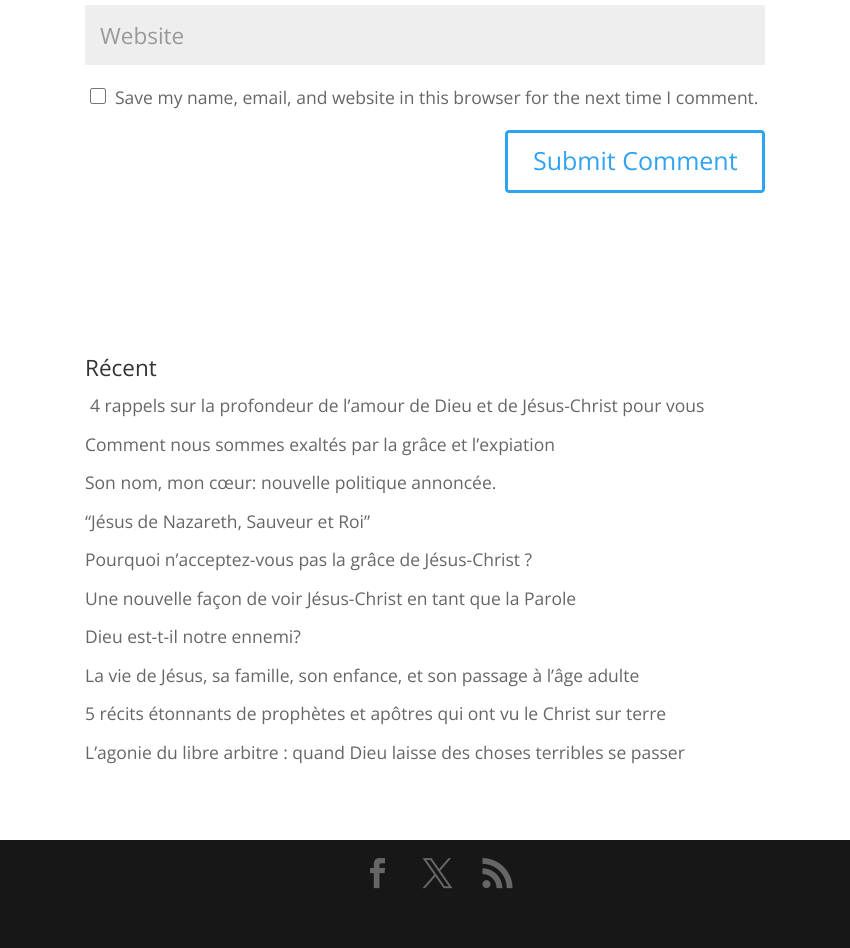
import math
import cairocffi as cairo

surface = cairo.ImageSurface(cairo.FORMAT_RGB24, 850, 948)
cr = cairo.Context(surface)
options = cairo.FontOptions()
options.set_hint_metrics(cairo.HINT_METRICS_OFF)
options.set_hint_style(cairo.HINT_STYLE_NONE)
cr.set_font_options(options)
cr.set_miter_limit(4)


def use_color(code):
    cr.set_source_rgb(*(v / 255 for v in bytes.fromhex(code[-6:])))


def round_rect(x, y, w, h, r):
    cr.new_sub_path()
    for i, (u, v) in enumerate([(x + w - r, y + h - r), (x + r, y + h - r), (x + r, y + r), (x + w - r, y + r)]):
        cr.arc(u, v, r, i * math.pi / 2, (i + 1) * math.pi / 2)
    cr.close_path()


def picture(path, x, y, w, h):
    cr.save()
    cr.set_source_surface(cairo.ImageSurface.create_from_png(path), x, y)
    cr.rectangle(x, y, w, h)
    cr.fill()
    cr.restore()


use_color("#ffffff")
cr.paint()
use_color("#eeeeee")
cr.rectangle(85, 5, 680, 60)
cr.fill()
cr.select_font_face("Open Sans")
cr.set_font_size(22.5)
use_color("#999999")
cr.move_to(100, 44)
cr.show_text("Website")
round_rect(90.5, 88.5, 15, 15, 2)
use_color("#767676")
cr.set_line_width(1)
cr.stroke()
cr.set_font_size(17.5)
use_color("#666666")
cr.move_to(115, 104)
cr.show_text("Save my name, email, and website in this browser for the next time I comment.")
round_rect(506.5, 131.5, 257, 60, 2.5)
use_color("#2ea3f2")
cr.set_line_width(3)
cr.stroke()
cr.set_font_size(25)
cr.move_to(533, 170)
cr.show_text("Submit Comment")
cr.set_font_size(22.5)
use_color("#333333")
cr.move_to(85, 376)
cr.show_text("Récent")
cr.set_font_size(17.5)
use_color("#666666")
cr.move_to(90, 412)
cr.show_text("4 rappels sur la profondeur de l’amour de Dieu et de Jésus-Christ pour vous")
cr.move_to(85, 451)
cr.show_text("Comment nous sommes exaltés par la grâce et l’expiation")
cr.move_to(85, 489)
cr.show_text("Son nom, mon cœur: nouvelle politique annoncée.")
cr.move_to(85, 528)
cr.show_text("“Jésus de Nazareth, Sauveur et Roi”")
cr.move_to(85, 566)
cr.show_text("Pourquoi n’acceptez-vous pas la grâce de Jésus-Christ ?")
cr.move_to(85, 605)
cr.show_text("Une nouvelle façon de voir Jésus-Christ en tant que la Parole")
cr.move_to(85, 643)
cr.show_text("Dieu est-t-il notre ennemi?")
cr.move_to(85, 682)
cr.show_text("La vie de Jésus, sa famille, son enfance, et son passage à l’âge adulte")
cr.move_to(85, 720)
cr.show_text("5 récits étonnants de prophètes et apôtres qui ont vu le Christ sur terre")
cr.move_to(85, 759)
cr.show_text("L’agonie du libre arbitre : quand Dieu laisse des choses terribles se passer")
use_color("#171717")
cr.rectangle(0, 840, 850, 108)
cr.fill()
picture("img1.png", 370, 858, 15, 31)
picture("img2.png", 422, 858, 31, 31)
picture("img3.png", 482, 858, 31, 31)
surface.write_to_png("result.png")
